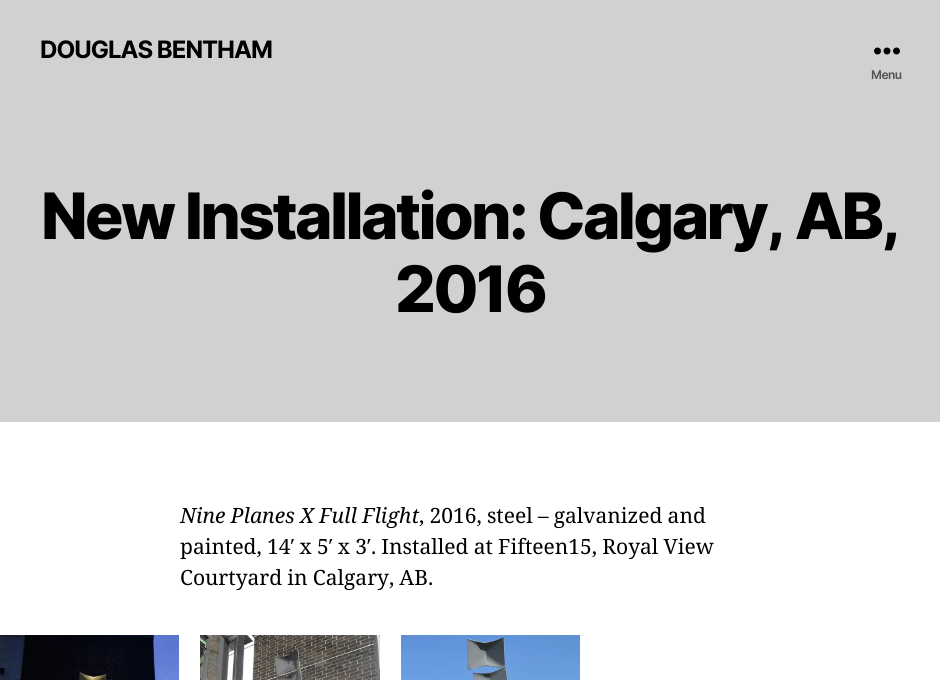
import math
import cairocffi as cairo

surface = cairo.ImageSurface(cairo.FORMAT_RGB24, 940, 680)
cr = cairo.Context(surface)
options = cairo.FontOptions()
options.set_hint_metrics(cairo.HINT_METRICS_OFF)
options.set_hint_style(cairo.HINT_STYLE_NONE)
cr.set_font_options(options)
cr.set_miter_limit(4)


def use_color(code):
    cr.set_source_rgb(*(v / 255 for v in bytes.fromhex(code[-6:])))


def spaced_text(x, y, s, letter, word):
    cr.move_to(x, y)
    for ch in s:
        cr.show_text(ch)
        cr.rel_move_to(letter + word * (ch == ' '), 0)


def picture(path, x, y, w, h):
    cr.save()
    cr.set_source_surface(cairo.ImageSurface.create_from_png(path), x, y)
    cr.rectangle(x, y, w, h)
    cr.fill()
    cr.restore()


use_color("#ffffff")
cr.paint()
use_color("#d1d1d1")
cr.rectangle(0, 0, 940, 422)
cr.fill()
cr.select_font_face("Inter", cairo.FONT_SLANT_NORMAL, cairo.FONT_WEIGHT_BOLD)
cr.set_font_size(24)
use_color("#000000")
spaced_text(40, 58, "DOUGLAS BENTHAM", -1, 0)
picture("img1.png", 874, 47, 26, 8)
cr.select_font_face("Inter SemiBold")
cr.set_font_size(12)
use_color("#515151")
spaced_text(871, 79, "Menu", -0.5, 0)
cr.select_font_face("Inter ExtraBold")
cr.set_font_size(64)
use_color("#000000")
spaced_text(41, 239, "New Installation: Calgary, AB,", -2.65, 0)
spaced_text(395, 312, "2016", -2.65, 0)
cr.select_font_face("Noto Serif", cairo.FONT_SLANT_ITALIC)
cr.set_font_size(21)
spaced_text(180, 523, "Nine Planes X Full Flight", 0, -0.25)
cr.select_font_face("Noto Serif")
spaced_text(419, 523, ", 2016, steel – galvanized and", 0, -0.25)
spaced_text(180, 554, "painted, 14′ x 5′ x 3′. Installed at Fifteen15, Royal View", 0, -0.25)
spaced_text(180, 585, "Courtyard in Calgary, AB.", 0, -0.25)
picture("img2.png", 0, 635, 179, 45)
picture("img3.png", 200, 635, 180, 45)
picture("img4.png", 401, 635, 179, 45)
surface.write_to_png("result.png")
